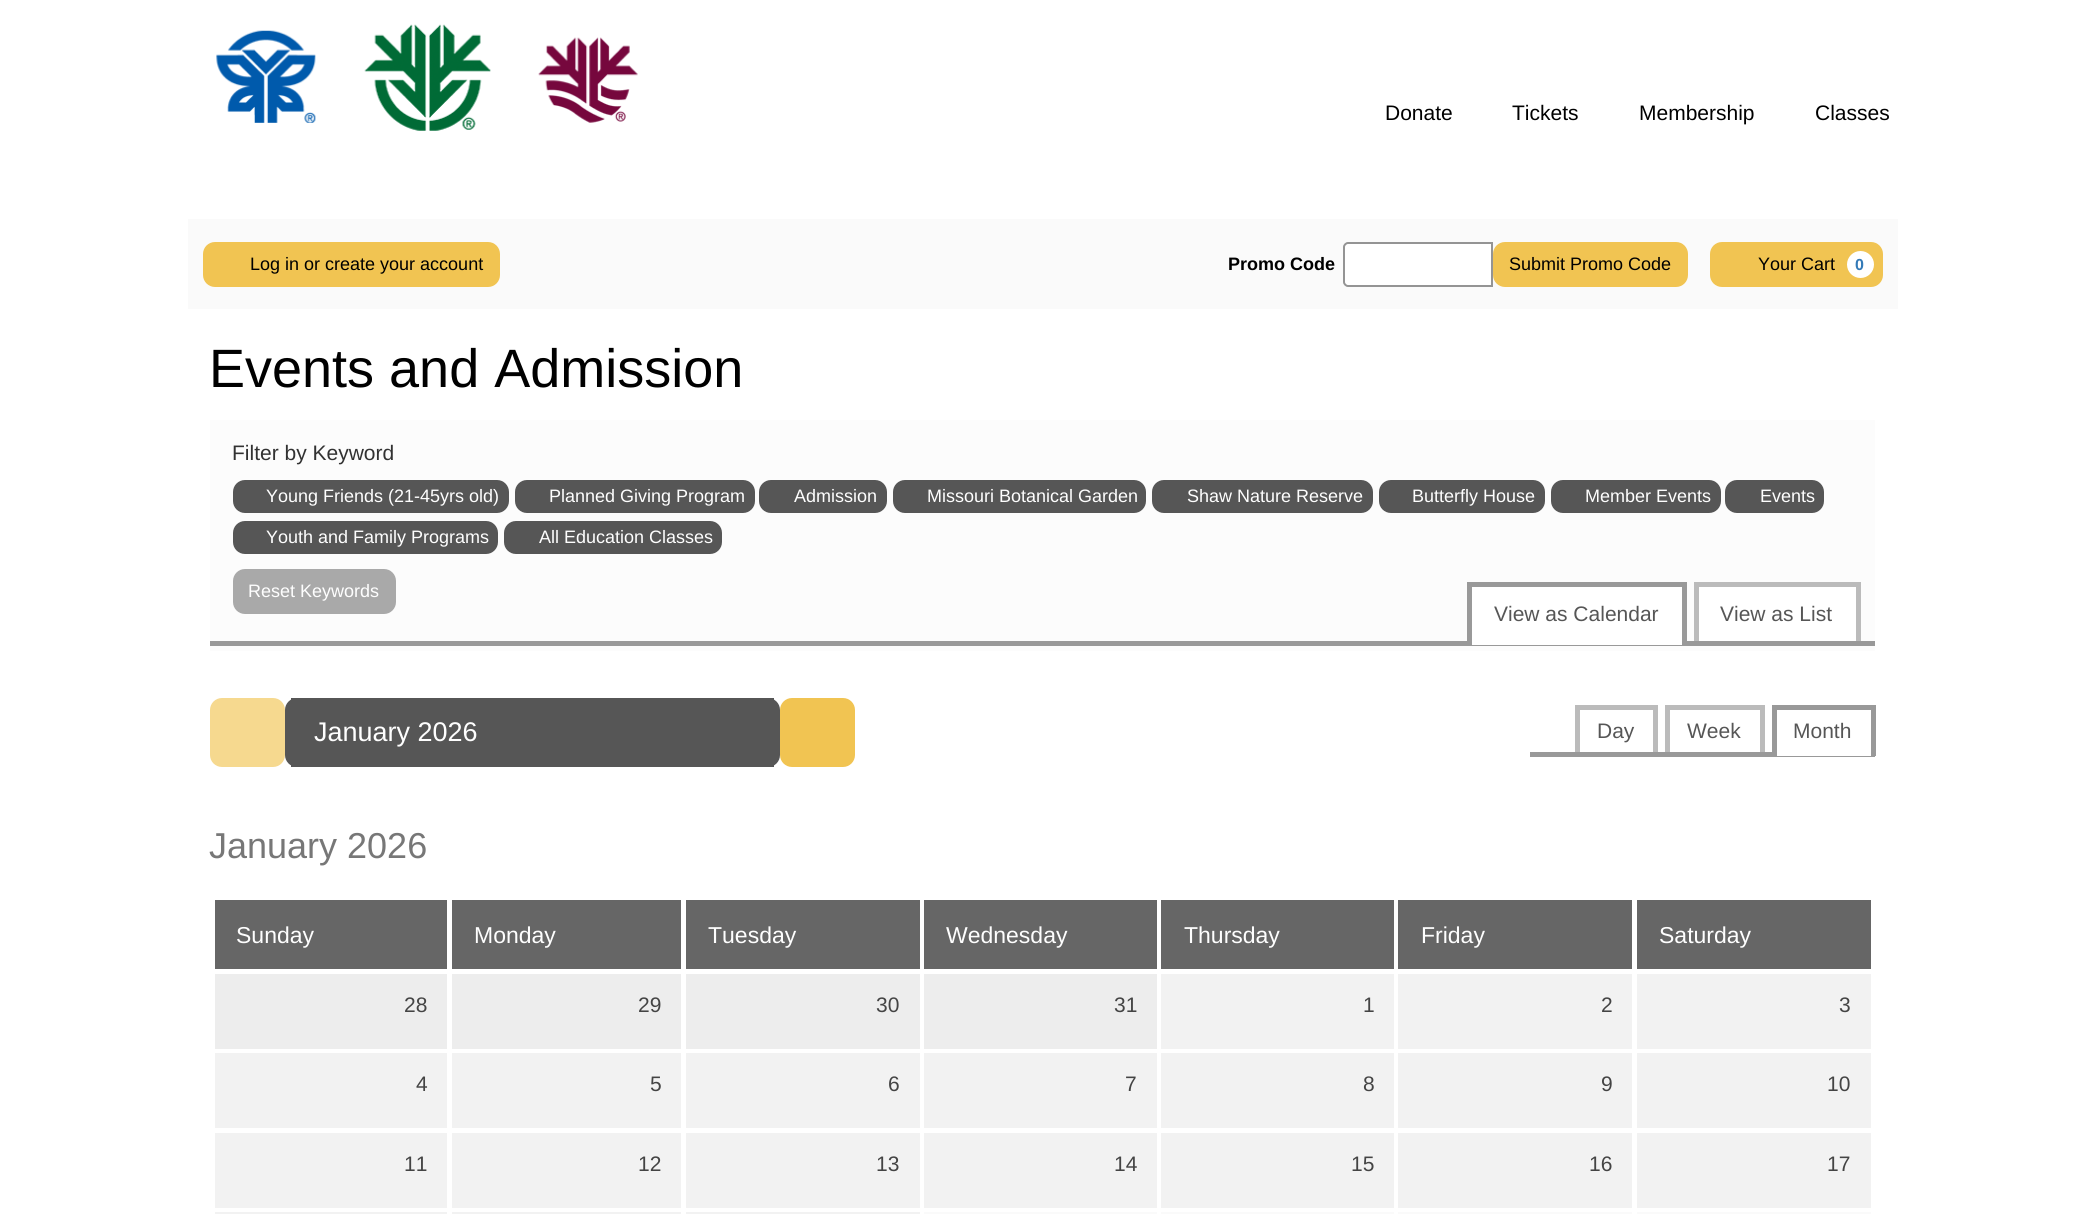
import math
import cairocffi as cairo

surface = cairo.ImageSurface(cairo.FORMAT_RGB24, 2083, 1214)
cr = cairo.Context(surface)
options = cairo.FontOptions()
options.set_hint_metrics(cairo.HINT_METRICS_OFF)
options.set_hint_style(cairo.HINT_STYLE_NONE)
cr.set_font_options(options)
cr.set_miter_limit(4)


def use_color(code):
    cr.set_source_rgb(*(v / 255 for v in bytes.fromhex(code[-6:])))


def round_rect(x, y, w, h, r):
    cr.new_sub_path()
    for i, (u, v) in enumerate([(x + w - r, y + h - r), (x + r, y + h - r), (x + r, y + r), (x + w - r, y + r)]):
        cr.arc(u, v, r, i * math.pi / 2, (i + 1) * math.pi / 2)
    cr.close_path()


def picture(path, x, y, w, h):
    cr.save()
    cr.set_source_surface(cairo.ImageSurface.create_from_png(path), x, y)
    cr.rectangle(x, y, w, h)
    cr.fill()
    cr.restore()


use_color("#ffffff")
cr.paint()
picture("img1.png", 216, 24, 422, 107)
cr.select_font_face("Liberation Sans")
cr.set_font_size(21)
use_color("#000000")
cr.move_to(1385, 120)
cr.show_text("Donate")
cr.move_to(1512, 120)
cr.show_text("Tickets")
cr.move_to(1639, 120)
cr.show_text("Membership")
cr.move_to(1815, 120)
cr.show_text("Classes")
use_color("#fafafa")
cr.rectangle(188, 219, 1710, 90)
cr.fill()
use_color("#f1c452")
round_rect(204, 243, 295, 43, 11)
cr.fill_preserve()
cr.stroke()
cr.set_font_size(18)
use_color("#000000")
cr.move_to(250, 270)
cr.show_text("Log in or create your account")
cr.select_font_face("Liberation Sans", cairo.FONT_SLANT_NORMAL, cairo.FONT_WEIGHT_BOLD)
cr.move_to(1228, 270)
cr.show_text("Promo Code")
use_color("#ffffff")
cr.new_path()
cr.move_to(1348, 243)
cr.line_to(1492, 243)
cr.line_to(1492, 286)
cr.line_to(1348, 286)
cr.curve_to(1346, 286, 1344, 284, 1344, 282)
cr.line_to(1344, 247)
cr.curve_to(1344, 245, 1346, 243, 1348, 243)
cr.close_path()
cr.fill_preserve()
use_color("#949494")
cr.stroke()
use_color("#f1c452")
round_rect(1494, 243, 193, 43, 11)
cr.fill_preserve()
cr.stroke()
cr.select_font_face("Liberation Sans")
use_color("#000000")
cr.move_to(1509, 270)
cr.show_text("Submit Promo Code")
use_color("#f1c452")
round_rect(1711, 243, 171, 43, 11)
cr.fill_preserve()
cr.stroke()
use_color("#000000")
cr.move_to(1758, 270)
cr.show_text("Your Cart")
use_color("#ffffff")
cr.new_path()
cr.arc(1860.5, 264.5, 13.5, 0, 2 * math.pi)
cr.fill()
cr.select_font_face("Liberation Sans", cairo.FONT_SLANT_NORMAL, cairo.FONT_WEIGHT_BOLD)
cr.set_font_size(16)
use_color("#337ab7")
cr.move_to(1855, 270)
cr.show_text("0")
cr.select_font_face("Liberation Sans")
cr.set_font_size(54)
use_color("#000000")
cr.move_to(209, 387)
cr.show_text("Events and Admission")
use_color("#fcfcfc")
cr.rectangle(210, 420, 1665, 231)
cr.fill()
cr.set_font_size(21)
use_color("#323232")
cr.move_to(232, 460)
cr.show_text("Filter by Keyword")
use_color("#565656")
round_rect(234, 481, 274, 31, 11)
cr.fill_preserve()
cr.stroke()
cr.set_font_size(18)
use_color("#fefefe")
cr.move_to(266, 502)
cr.show_text("Young Friends (21-45yrs old)")
use_color("#565656")
round_rect(516, 481, 238, 31, 11)
cr.fill_preserve()
cr.stroke()
use_color("#fefefe")
cr.move_to(549, 502)
cr.show_text("Planned Giving Program")
use_color("#565656")
round_rect(760, 481, 126, 31, 11)
cr.fill_preserve()
cr.stroke()
use_color("#fefefe")
cr.move_to(794, 502)
cr.show_text("Admission")
use_color("#565656")
round_rect(894, 481, 251, 31, 11)
cr.fill_preserve()
cr.stroke()
use_color("#fefefe")
cr.move_to(927, 502)
cr.show_text("Missouri Botanical Garden")
use_color("#565656")
round_rect(1153, 481, 219, 31, 11)
cr.fill_preserve()
cr.stroke()
use_color("#fefefe")
cr.move_to(1187, 502)
cr.show_text("Shaw Nature Reserve")
use_color("#565656")
round_rect(1380, 481, 164, 31, 11)
cr.fill_preserve()
cr.stroke()
use_color("#fefefe")
cr.move_to(1412, 502)
cr.show_text("Butterfly House")
use_color("#565656")
round_rect(1552, 481, 168, 31, 11)
cr.fill_preserve()
cr.stroke()
use_color("#fefefe")
cr.move_to(1585, 502)
cr.show_text("Member Events")
use_color("#565656")
round_rect(1726, 481, 97, 31, 11)
cr.fill_preserve()
cr.stroke()
use_color("#fefefe")
cr.move_to(1760, 502)
cr.show_text("Events")
use_color("#565656")
round_rect(234, 522, 263, 31, 11)
cr.fill_preserve()
cr.stroke()
use_color("#fefefe")
cr.move_to(266, 543)
cr.show_text("Youth and Family Programs")
use_color("#565656")
round_rect(505, 522, 216, 31, 11)
cr.fill_preserve()
cr.stroke()
use_color("#fefefe")
cr.move_to(539, 543)
cr.show_text("All Education Classes")
use_color("#a9a9a9")
round_rect(234, 570, 161, 43, 11)
cr.fill_preserve()
cr.stroke()
use_color("#fefefe")
cr.move_to(248, 597)
cr.show_text("Reset Keywords")
use_color("#999999")
cr.rectangle(210, 641, 1665, 5)
cr.fill()
use_color("#ffffff")
cr.rectangle(1472, 587, 210, 58)
cr.fill()
use_color("#999999")
cr.rectangle(1467, 582, 219, 5)
cr.fill()
cr.rectangle(1682, 582, 5, 63)
cr.fill()
cr.rectangle(1467, 582, 5, 63)
cr.fill()
cr.set_font_size(21)
use_color("#565656")
cr.move_to(1494, 621)
cr.show_text("View as Calendar")
use_color("#ffffff")
cr.rectangle(1699, 587, 157, 54)
cr.fill()
use_color("#bbbbbb")
cr.rectangle(1694, 582, 166, 5)
cr.fill()
cr.rectangle(1856, 582, 5, 59)
cr.fill()
cr.rectangle(1694, 582, 5, 59)
cr.fill()
use_color("#565656")
cr.move_to(1720, 621)
cr.show_text("View as List")
use_color("#f6d98f")
round_rect(211, 699, 73, 67, 11)
cr.fill_preserve()
cr.stroke()
use_color("#565656")
round_rect(285, 698, 495, 69, 12)
cr.fill()
cr.rectangle(291, 698, 483, 2)
cr.fill()
cr.rectangle(291, 765, 483, 2)
cr.fill()
cr.set_font_size(27)
use_color("#fefefe")
cr.move_to(314, 741)
cr.show_text("January 2026")
use_color("#f1c452")
round_rect(781, 699, 73, 67, 11)
cr.fill_preserve()
cr.stroke()
cr.set_font_size(36)
use_color("#777777")
cr.move_to(209, 858)
cr.show_text("January 2026")
use_color("#666666")
cr.rectangle(215, 900, 232, 69)
cr.fill()
cr.set_font_size(23)
use_color("#fefefe")
cr.move_to(236, 943)
cr.show_text("Sunday")
use_color("#666666")
cr.rectangle(452, 900, 229, 69)
cr.fill()
use_color("#fefefe")
cr.move_to(474, 943)
cr.show_text("Monday")
use_color("#666666")
cr.rectangle(686, 900, 234, 69)
cr.fill()
use_color("#fefefe")
cr.move_to(708, 943)
cr.show_text("Tuesday")
use_color("#666666")
cr.rectangle(924, 900, 233, 69)
cr.fill()
use_color("#fefefe")
cr.move_to(946, 943)
cr.show_text("Wednesday")
use_color("#666666")
cr.rectangle(1161, 900, 233, 69)
cr.fill()
use_color("#fefefe")
cr.move_to(1184, 943)
cr.show_text("Thursday")
use_color("#666666")
cr.rectangle(1398, 900, 234, 69)
cr.fill()
use_color("#fefefe")
cr.move_to(1421, 943)
cr.show_text("Friday")
use_color("#666666")
cr.rectangle(1637, 900, 234, 69)
cr.fill()
use_color("#fefefe")
cr.move_to(1659, 943)
cr.show_text("Saturday")
use_color("#ededed")
cr.rectangle(215, 974, 232, 75)
cr.fill()
cr.set_font_size(21)
use_color("#444444")
cr.move_to(404, 1012)
cr.show_text("28")
use_color("#ededed")
cr.rectangle(452, 974, 229, 75)
cr.fill()
use_color("#444444")
cr.move_to(638, 1012)
cr.show_text("29")
use_color("#ededed")
cr.rectangle(686, 974, 234, 75)
cr.fill()
use_color("#444444")
cr.move_to(876, 1012)
cr.show_text("30")
use_color("#ededed")
cr.rectangle(924, 974, 233, 75)
cr.fill()
use_color("#444444")
cr.move_to(1114, 1012)
cr.show_text("31")
use_color("#f2f2f2")
cr.rectangle(1161, 974, 233, 75)
cr.fill()
use_color("#444444")
cr.move_to(1363, 1012)
cr.show_text("1")
use_color("#f2f2f2")
cr.rectangle(1398, 974, 234, 75)
cr.fill()
use_color("#444444")
cr.move_to(1601, 1012)
cr.show_text("2")
use_color("#f2f2f2")
cr.rectangle(1637, 974, 234, 75)
cr.fill()
use_color("#444444")
cr.move_to(1839, 1012)
cr.show_text("3")
use_color("#f2f2f2")
cr.rectangle(215, 1053, 232, 75)
cr.fill()
use_color("#444444")
cr.move_to(416, 1091)
cr.show_text("4")
use_color("#f2f2f2")
cr.rectangle(452, 1053, 229, 75)
cr.fill()
use_color("#444444")
cr.move_to(650, 1091)
cr.show_text("5")
use_color("#f2f2f2")
cr.rectangle(686, 1053, 234, 75)
cr.fill()
use_color("#444444")
cr.move_to(888, 1091)
cr.show_text("6")
use_color("#f2f2f2")
cr.rectangle(924, 1053, 233, 75)
cr.fill()
use_color("#444444")
cr.move_to(1125, 1091)
cr.show_text("7")
use_color("#f2f2f2")
cr.rectangle(1161, 1053, 233, 75)
cr.fill()
use_color("#444444")
cr.move_to(1363, 1091)
cr.show_text("8")
use_color("#f2f2f2")
cr.rectangle(1398, 1053, 234, 75)
cr.fill()
use_color("#444444")
cr.move_to(1601, 1091)
cr.show_text("9")
use_color("#f2f2f2")
cr.rectangle(1637, 1053, 234, 75)
cr.fill()
use_color("#444444")
cr.move_to(1827, 1091)
cr.show_text("10")
use_color("#f2f2f2")
cr.rectangle(215, 1133, 232, 75)
cr.fill()
use_color("#444444")
cr.move_to(404, 1171)
cr.show_text("11")
use_color("#f2f2f2")
cr.rectangle(452, 1133, 229, 75)
cr.fill()
use_color("#444444")
cr.move_to(638, 1171)
cr.show_text("12")
use_color("#f2f2f2")
cr.rectangle(686, 1133, 234, 75)
cr.fill()
use_color("#444444")
cr.move_to(876, 1171)
cr.show_text("13")
use_color("#f2f2f2")
cr.rectangle(924, 1133, 233, 75)
cr.fill()
use_color("#444444")
cr.move_to(1114, 1171)
cr.show_text("14")
use_color("#f2f2f2")
cr.rectangle(1161, 1133, 233, 75)
cr.fill()
use_color("#444444")
cr.move_to(1351, 1171)
cr.show_text("15")
use_color("#f2f2f2")
cr.rectangle(1398, 1133, 234, 75)
cr.fill()
use_color("#444444")
cr.move_to(1589, 1171)
cr.show_text("16")
use_color("#f2f2f2")
cr.rectangle(1637, 1133, 234, 75)
cr.fill()
use_color("#444444")
cr.move_to(1827, 1171)
cr.show_text("17")
use_color("#f2f2f2")
cr.rectangle(215, 1212, 232, 2)
cr.fill()
cr.rectangle(452, 1212, 229, 2)
cr.fill()
cr.rectangle(686, 1212, 234, 2)
cr.fill()
use_color("#fafafa")
cr.rectangle(924, 1212, 233, 2)
cr.fill()
cr.rectangle(1161, 1212, 233, 2)
cr.fill()
cr.rectangle(1398, 1212, 234, 2)
cr.fill()
cr.rectangle(1637, 1212, 234, 2)
cr.fill()
use_color("#999999")
cr.rectangle(1530, 752, 345, 5)
cr.fill()
use_color("#bbbbbb")
cr.rectangle(1575, 705, 83, 5)
cr.fill()
cr.rectangle(1653, 705, 5, 47)
cr.fill()
cr.rectangle(1575, 705, 5, 47)
cr.fill()
use_color("#565656")
cr.move_to(1597, 738)
cr.show_text("Day")
use_color("#bbbbbb")
cr.rectangle(1665, 705, 99, 5)
cr.fill()
cr.rectangle(1760, 705, 5, 47)
cr.fill()
cr.rectangle(1665, 705, 5, 47)
cr.fill()
use_color("#565656")
cr.move_to(1687, 738)
cr.show_text("Week")
use_color("#ffffff")
cr.rectangle(1777, 752, 94, 4)
cr.fill()
use_color("#999999")
cr.rectangle(1772, 705, 103, 5)
cr.fill()
cr.rectangle(1871, 705, 5, 51)
cr.fill()
cr.rectangle(1772, 705, 5, 51)
cr.fill()
use_color("#565656")
cr.move_to(1793, 738)
cr.show_text("Month")
surface.write_to_png("result.png")
